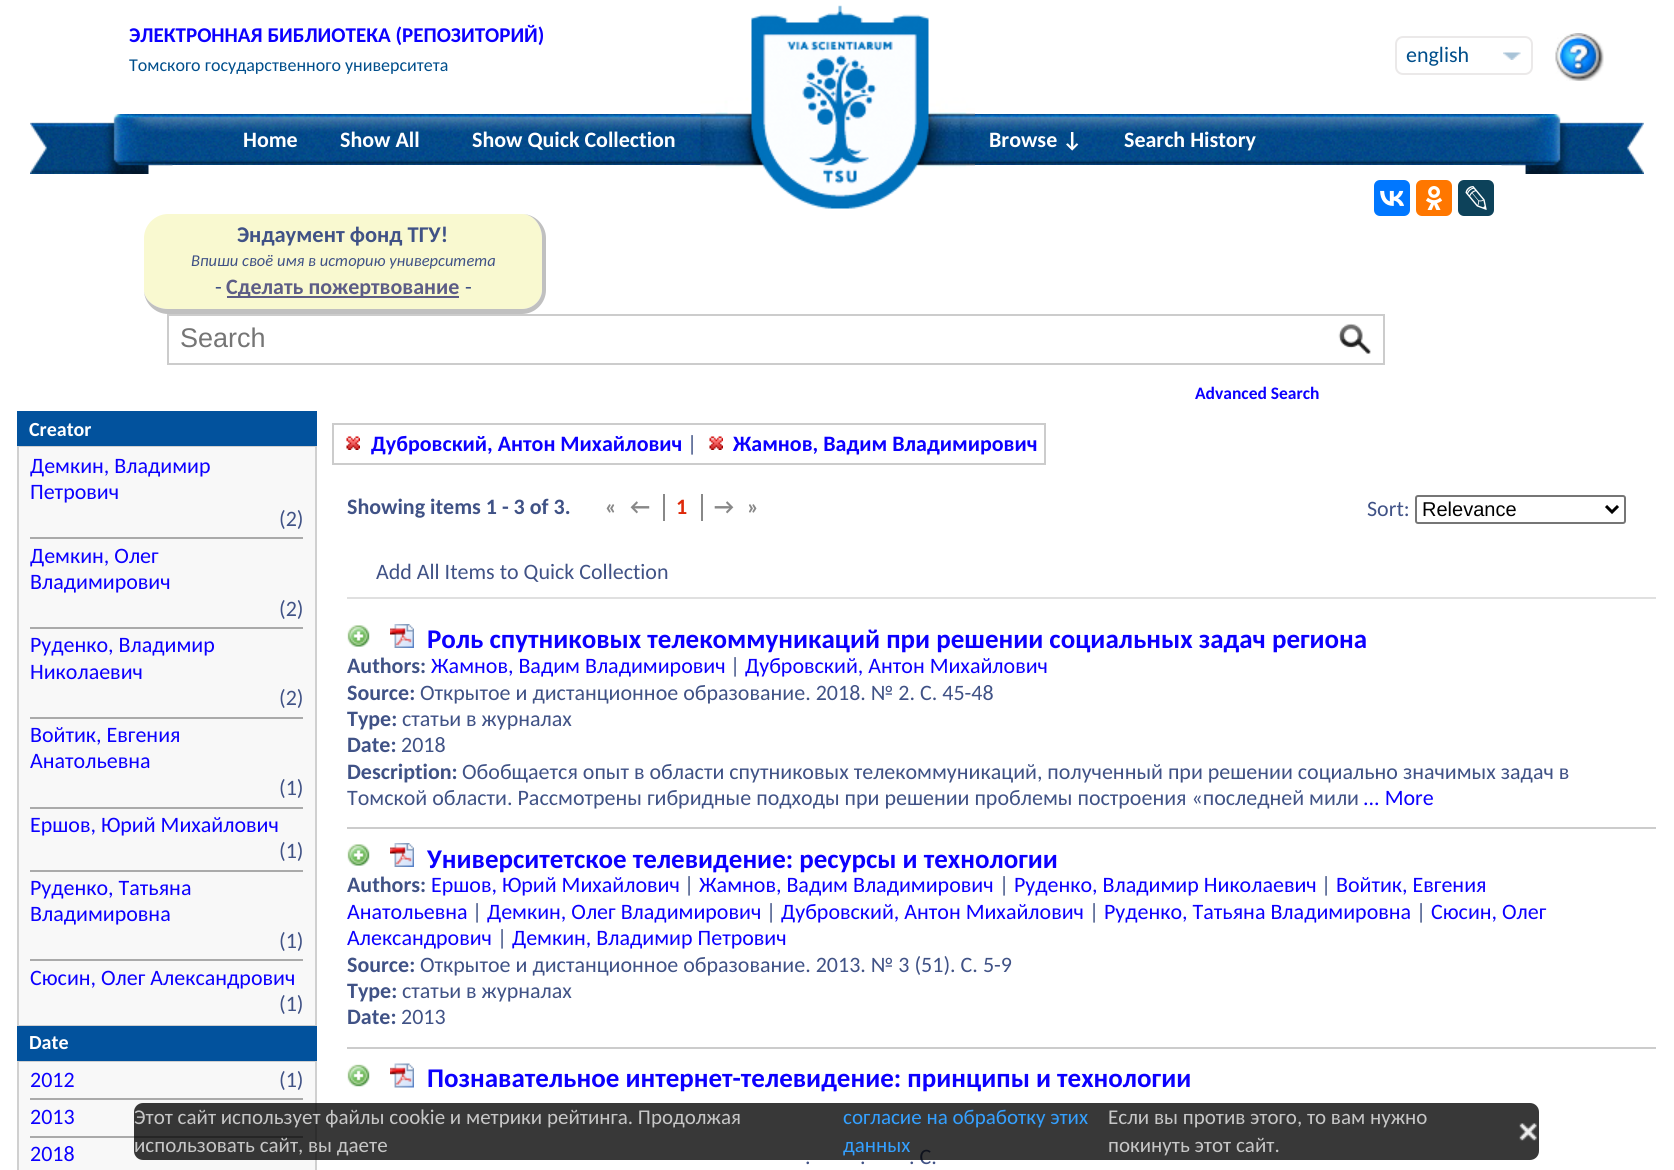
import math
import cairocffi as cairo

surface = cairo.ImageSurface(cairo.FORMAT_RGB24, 1674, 1170)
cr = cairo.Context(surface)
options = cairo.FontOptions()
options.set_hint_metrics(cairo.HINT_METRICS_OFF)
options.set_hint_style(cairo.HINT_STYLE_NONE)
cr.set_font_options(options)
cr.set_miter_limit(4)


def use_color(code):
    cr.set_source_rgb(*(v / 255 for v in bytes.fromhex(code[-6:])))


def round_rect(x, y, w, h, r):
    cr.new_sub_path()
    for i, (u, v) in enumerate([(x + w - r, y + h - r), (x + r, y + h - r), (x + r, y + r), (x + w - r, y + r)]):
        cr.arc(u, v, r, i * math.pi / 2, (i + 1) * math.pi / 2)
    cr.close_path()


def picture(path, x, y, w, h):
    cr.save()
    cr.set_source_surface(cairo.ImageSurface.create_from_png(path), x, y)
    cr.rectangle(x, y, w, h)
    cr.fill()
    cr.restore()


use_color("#ffffff")
cr.paint()
cr.select_font_face("Carlito", cairo.FONT_SLANT_NORMAL, cairo.FONT_WEIGHT_BOLD)
cr.set_font_size(21)
use_color("#0c00ff")
cr.move_to(129, 42)
cr.show_text("ЭЛЕКТРОННАЯ БИБЛИОТЕКА (РЕПОЗИТОРИЙ)")
cr.select_font_face("Carlito")
cr.set_font_size(18)
use_color("#004e8b")
cr.move_to(129, 71)
cr.show_text("Томского государственного университета")
round_rect(1396, 37, 136, 37, 7)
use_color("#ebe9e9")
cr.stroke()
picture("img1.png", 1503, 52, 18, 8)
cr.set_font_size(22)
use_color("#004e8b")
cr.move_to(1406, 62)
cr.show_text("english")
picture("img2.png", 1555, 33, 49, 48)
picture("img4.png", 172, 114, 1330, 51)
picture("img3.png", 30, 114, 143, 60)
cr.select_font_face("Carlito", cairo.FONT_SLANT_NORMAL, cairo.FONT_WEIGHT_BOLD)
use_color("#ffffff")
cr.move_to(243, 147)
cr.show_text("Home")
cr.move_to(340, 147)
cr.show_text("Show All")
cr.move_to(472, 147)
cr.show_text("Show Quick Collection")
picture("img5.png", 700, 5, 275, 204)
cr.move_to(989, 147)
cr.show_text("Browse ↓")
cr.move_to(1124, 147)
cr.show_text("Search History")
picture("img6.png", 1501, 114, 143, 60)
use_color("#f9f9d0")
cr.new_path()
cr.move_to(168, 214)
cr.line_to(522, 214)
cr.curve_to(533, 214, 542, 225, 542, 238)
cr.line_to(542, 290)
cr.curve_to(542, 300, 533, 309, 522, 309)
cr.line_to(168, 309)
cr.curve_to(155, 309, 144, 300, 144, 290)
cr.line_to(144, 238)
cr.curve_to(144, 225, 155, 214, 168, 214)
cr.close_path()
cr.fill()
use_color("#c0c0c0")
cr.set_fill_rule(cairo.FILL_RULE_EVEN_ODD)
cr.new_path()
cr.move_to(168, 214)
cr.line_to(522, 214)
cr.curve_to(535, 214, 546, 225, 546, 238)
cr.line_to(546, 290)
cr.curve_to(546, 303, 535, 314, 522, 314)
cr.line_to(168, 314)
cr.curve_to(155, 314, 144, 303, 144, 290)
cr.line_to(144, 238)
cr.curve_to(144, 225, 155, 214, 168, 214)
cr.close_path()
cr.move_to(168, 214)
cr.line_to(522, 214)
cr.curve_to(533, 214, 542, 225, 542, 238)
cr.line_to(542, 290)
cr.curve_to(542, 300, 533, 309, 522, 309)
cr.line_to(168, 309)
cr.curve_to(155, 309, 144, 300, 144, 290)
cr.line_to(144, 238)
cr.curve_to(144, 225, 155, 214, 168, 214)
cr.close_path()
cr.fill()
cr.set_font_size(22.5)
use_color("#405286")
cr.move_to(237, 242)
cr.show_text("Эндаумент фонд ТГУ!")
cr.select_font_face("Carlito", cairo.FONT_SLANT_ITALIC)
cr.set_font_size(16.5)
cr.move_to(191, 266)
cr.show_text("Впиши своё имя в историю университета")
cr.select_font_face("Carlito")
cr.set_font_size(22)
cr.move_to(215, 294)
cr.show_text("-")
use_color("#5d5d86")
cr.rectangle(227, 296, 232, 2)
cr.fill()
cr.select_font_face("Carlito", cairo.FONT_SLANT_NORMAL, cairo.FONT_WEIGHT_BOLD)
cr.move_to(226, 294)
cr.show_text("Сделать пожертвование")
cr.select_font_face("Carlito")
use_color("#405286")
cr.move_to(465, 294)
cr.show_text("-")
cr.rectangle(168, 315, 1216, 49)
use_color("#cccccc")
cr.stroke()
cr.select_font_face("Liberation Sans")
cr.set_font_size(27)
use_color("#757575")
cr.move_to(180, 347)
cr.show_text("Search")
picture("img7.png", 1338, 323, 33, 31)
cr.select_font_face("Carlito", cairo.FONT_SLANT_NORMAL, cairo.FONT_WEIGHT_BOLD)
cr.set_font_size(17.5)
use_color("#0c00ff")
cr.move_to(1195, 399)
cr.show_text("Advanced Search")
use_color("#d0d0d0")
cr.rectangle(17, 1025, 300, 1)
cr.fill()
use_color("#02529d")
cr.rectangle(17, 411, 300, 35)
cr.fill()
use_color("#d0d0d0")
cr.rectangle(17, 446, 300, 1)
cr.fill()
cr.set_font_size(20)
use_color("#ffffff")
cr.move_to(29, 436)
cr.show_text("Creator")
use_color("#f8f8f8")
cr.rectangle(19, 447, 296, 578)
cr.fill()
use_color("#d0d0d0")
cr.rectangle(315, 447, 2, 578)
cr.fill()
cr.rectangle(17, 447, 2, 578)
cr.fill()
cr.select_font_face("Carlito")
cr.set_font_size(22)
use_color("#0c00ff")
cr.move_to(30, 473)
cr.show_text("Демкин, Владимир")
cr.move_to(30, 499)
cr.show_text("Петрович")
use_color("#405286")
cr.move_to(279, 526)
cr.show_text("(2)")
use_color("#aaaaaa")
cr.rectangle(30, 537, 273, 2)
cr.fill()
use_color("#0c00ff")
cr.move_to(30, 563)
cr.show_text("Демкин, Олег")
cr.move_to(30, 589)
cr.show_text("Владимирович")
use_color("#405286")
cr.move_to(279, 616)
cr.show_text("(2)")
use_color("#aaaaaa")
cr.rectangle(30, 627, 273, 2)
cr.fill()
use_color("#0c00ff")
cr.move_to(30, 652)
cr.show_text("Руденко, Владимир")
cr.move_to(30, 679)
cr.show_text("Николаевич")
use_color("#405286")
cr.move_to(279, 705)
cr.show_text("(2)")
use_color("#aaaaaa")
cr.rectangle(30, 717, 273, 2)
cr.fill()
use_color("#0c00ff")
cr.move_to(30, 742)
cr.show_text("Войтик, Евгения")
cr.move_to(30, 768)
cr.show_text("Анатольевна")
use_color("#405286")
cr.move_to(279, 795)
cr.show_text("(1)")
use_color("#aaaaaa")
cr.rectangle(30, 807, 273, 2)
cr.fill()
use_color("#0c00ff")
cr.move_to(30, 832)
cr.show_text("Ершов, Юрий Михайлович")
use_color("#405286")
cr.move_to(279, 858)
cr.show_text("(1)")
use_color("#aaaaaa")
cr.rectangle(30, 870, 273, 2)
cr.fill()
use_color("#0c00ff")
cr.move_to(30, 895)
cr.show_text("Руденко, Татьяна")
cr.move_to(30, 921)
cr.show_text("Владимировна")
use_color("#405286")
cr.move_to(279, 948)
cr.show_text("(1)")
use_color("#aaaaaa")
cr.rectangle(30, 959, 273, 2)
cr.fill()
use_color("#0c00ff")
cr.move_to(30, 985)
cr.show_text("Сюсин, Олег Александрович")
use_color("#405286")
cr.move_to(279, 1011)
cr.show_text("(1)")
use_color("#02529d")
cr.rectangle(17, 1026, 300, 35)
cr.fill()
use_color("#d0d0d0")
cr.rectangle(17, 1061, 300, 1)
cr.fill()
cr.select_font_face("Carlito", cairo.FONT_SLANT_NORMAL, cairo.FONT_WEIGHT_BOLD)
cr.set_font_size(20)
use_color("#ffffff")
cr.move_to(29, 1049)
cr.show_text("Date")
use_color("#f8f8f8")
cr.rectangle(19, 1062, 296, 108)
cr.fill()
use_color("#d0d0d0")
cr.rectangle(315, 1062, 2, 108)
cr.fill()
cr.rectangle(17, 1062, 2, 108)
cr.fill()
cr.select_font_face("Carlito")
cr.set_font_size(22)
use_color("#0c00ff")
cr.move_to(30, 1087)
cr.show_text("2012")
use_color("#405286")
cr.move_to(279, 1087)
cr.show_text("(1)")
use_color("#aaaaaa")
cr.rectangle(30, 1098, 273, 2)
cr.fill()
use_color("#0c00ff")
cr.move_to(30, 1124)
cr.show_text("2013")
use_color("#aaaaaa")
cr.rectangle(30, 1136, 273, 2)
cr.fill()
use_color("#0c00ff")
cr.move_to(30, 1161)
cr.show_text("2018")
cr.rectangle(333, 424, 712, 40)
use_color("#cccccc")
cr.stroke()
picture("img8.png", 346, 436, 14, 14)
cr.select_font_face("Carlito", cairo.FONT_SLANT_NORMAL, cairo.FONT_WEIGHT_BOLD)
use_color("#0c00ff")
cr.move_to(371, 451)
cr.show_text("Дубровский, Антон Михайлович")
cr.select_font_face("Carlito")
use_color("#405286")
cr.move_to(687, 451)
cr.show_text("|")
picture("img9.png", 709, 436, 14, 14)
cr.select_font_face("Carlito", cairo.FONT_SLANT_NORMAL, cairo.FONT_WEIGHT_BOLD)
use_color("#0c00ff")
cr.move_to(733, 451)
cr.show_text("Жамнов, Вадим Владимирович")
use_color("#0077ff")
round_rect(1374, 180, 36, 36, 6)
cr.fill()
picture("img10.png", 1380, 190, 24, 16)
use_color("#ff7700")
round_rect(1416, 180, 36, 36, 6)
cr.fill()
picture("img11.png", 1426, 186, 17, 24)
use_color("#0d425a")
round_rect(1458, 180, 36, 36, 6)
cr.fill()
picture("img12.png", 1465, 186, 22, 24)
use_color("#405286")
cr.move_to(347, 514)
cr.show_text("Showing items 1 - 3 of 3.")
use_color("#888888")
cr.move_to(605, 514)
cr.show_text("«")
cr.move_to(630, 514)
cr.show_text("←")
cr.rectangle(663, 494, 2, 27)
cr.fill()
use_color("#de290a")
cr.move_to(676, 514)
cr.show_text("1")
use_color("#888888")
cr.move_to(714, 514)
cr.show_text("→")
cr.rectangle(701, 494, 2, 27)
cr.fill()
cr.move_to(747, 514)
cr.show_text("»")
cr.select_font_face("Carlito")
use_color("#405286")
cr.move_to(1367, 516)
cr.show_text("Sort:")
round_rect(1416, 496, 209, 27, 2)
use_color("#767676")
cr.stroke()
cr.new_path()
cr.move_to(1606, 506)
cr.line_to(1612, 512)
cr.line_to(1618, 506)
use_color("#000000")
cr.set_line_width(3)
cr.stroke()
cr.select_font_face("Liberation Sans")
cr.set_font_size(20)
cr.move_to(1422, 516)
cr.show_text("Relevance")
cr.select_font_face("Carlito")
cr.set_font_size(22)
use_color("#405286")
cr.move_to(376, 579)
cr.show_text("Add All Items to Quick Collection")
use_color("#e0e0e0")
cr.rectangle(347, 597, 1309, 2)
cr.fill()
use_color("#cccccc")
cr.rectangle(347, 827, 1309, 2)
cr.fill()
picture("img13.png", 347, 625, 23, 22)
picture("img14.png", 390, 624, 24, 24)
cr.select_font_face("Carlito", cairo.FONT_SLANT_NORMAL, cairo.FONT_WEIGHT_BOLD)
cr.set_font_size(27)
use_color("#0c00ff")
cr.move_to(427, 648)
cr.show_text("Роль спутниковых телекоммуникаций при решении cоциальных задач региона")
cr.set_font_size(22)
use_color("#405286")
cr.move_to(347, 673)
cr.show_text("Authors:")
cr.select_font_face("Carlito")
use_color("#0c00ff")
cr.move_to(431, 673)
cr.show_text("Жамнов, Вадим Владимирович")
use_color("#405286")
cr.move_to(730, 673)
cr.show_text("|")
use_color("#0c00ff")
cr.move_to(745, 673)
cr.show_text("Дубровский, Антон Михайлович")
cr.select_font_face("Carlito", cairo.FONT_SLANT_NORMAL, cairo.FONT_WEIGHT_BOLD)
use_color("#405286")
cr.move_to(347, 700)
cr.show_text("Source:")
cr.select_font_face("Carlito")
cr.move_to(420, 700)
cr.show_text("Открытое и дистанционное образование. 2018. № 2. С. 45-48")
cr.select_font_face("Carlito", cairo.FONT_SLANT_NORMAL, cairo.FONT_WEIGHT_BOLD)
cr.move_to(347, 726)
cr.show_text("Type:")
cr.select_font_face("Carlito")
cr.move_to(402, 726)
cr.show_text("статьи в журналах")
cr.select_font_face("Carlito", cairo.FONT_SLANT_NORMAL, cairo.FONT_WEIGHT_BOLD)
cr.move_to(347, 752)
cr.show_text("Date:")
cr.select_font_face("Carlito")
cr.move_to(401, 752)
cr.show_text("2018")
cr.select_font_face("Carlito", cairo.FONT_SLANT_NORMAL, cairo.FONT_WEIGHT_BOLD)
cr.move_to(347, 779)
cr.show_text("Description:")
cr.select_font_face("Carlito")
cr.move_to(462, 779)
cr.show_text("Обобщается опыт в области спутниковых телекоммуникаций, полученный при решении социально значимых задач в")
cr.move_to(347, 805)
cr.show_text("Томской области. Рассмотрены гибридные подходы при решении проблемы построения «последней мили")
use_color("#0c00ff")
cr.move_to(1363, 805)
cr.show_text("... More")
use_color("#cccccc")
cr.rectangle(347, 1047, 1309, 2)
cr.fill()
picture("img13.png", 347, 844, 23, 22)
picture("img14.png", 390, 843, 24, 24)
cr.select_font_face("Carlito", cairo.FONT_SLANT_NORMAL, cairo.FONT_WEIGHT_BOLD)
cr.set_font_size(27)
use_color("#0c00ff")
cr.move_to(427, 868)
cr.show_text("Университетское телевидение: ресурсы и технологии")
cr.set_font_size(22)
use_color("#405286")
cr.move_to(347, 892)
cr.show_text("Authors:")
cr.select_font_face("Carlito")
use_color("#0c00ff")
cr.move_to(431, 892)
cr.show_text("Ершов, Юрий Михайлович")
use_color("#405286")
cr.move_to(684, 892)
cr.show_text("|")
use_color("#0c00ff")
cr.move_to(699, 892)
cr.show_text("Жамнов, Вадим Владимирович")
use_color("#405286")
cr.move_to(999, 892)
cr.show_text("|")
use_color("#0c00ff")
cr.move_to(1014, 892)
cr.show_text("Руденко, Владимир Николаевич")
use_color("#405286")
cr.move_to(1321, 892)
cr.show_text("|")
use_color("#0c00ff")
cr.move_to(1336, 892)
cr.show_text("Войтик, Евгения")
cr.move_to(347, 919)
cr.show_text("Анатольевна")
use_color("#405286")
cr.move_to(472, 919)
cr.show_text("|")
use_color("#0c00ff")
cr.move_to(487, 919)
cr.show_text("Демкин, Олег Владимирович")
use_color("#405286")
cr.move_to(766, 919)
cr.show_text("|")
use_color("#0c00ff")
cr.move_to(781, 919)
cr.show_text("Дубровский, Антон Михайлович")
use_color("#405286")
cr.move_to(1089, 919)
cr.show_text("|")
use_color("#0c00ff")
cr.move_to(1104, 919)
cr.show_text("Руденко, Татьяна Владимировна")
use_color("#405286")
cr.move_to(1416, 919)
cr.show_text("|")
use_color("#0c00ff")
cr.move_to(1431, 919)
cr.show_text("Сюсин, Олег")
cr.move_to(347, 945)
cr.show_text("Александрович")
use_color("#405286")
cr.move_to(497, 945)
cr.show_text("|")
use_color("#0c00ff")
cr.move_to(512, 945)
cr.show_text("Демкин, Владимир Петрович")
cr.select_font_face("Carlito", cairo.FONT_SLANT_NORMAL, cairo.FONT_WEIGHT_BOLD)
use_color("#405286")
cr.move_to(347, 972)
cr.show_text("Source:")
cr.select_font_face("Carlito")
cr.move_to(420, 972)
cr.show_text("Открытое и дистанционное образование. 2013. № 3 (51). С. 5-9")
cr.select_font_face("Carlito", cairo.FONT_SLANT_NORMAL, cairo.FONT_WEIGHT_BOLD)
cr.move_to(347, 998)
cr.show_text("Type:")
cr.select_font_face("Carlito")
cr.move_to(402, 998)
cr.show_text("статьи в журналах")
cr.select_font_face("Carlito", cairo.FONT_SLANT_NORMAL, cairo.FONT_WEIGHT_BOLD)
cr.move_to(347, 1024)
cr.show_text("Date:")
cr.select_font_face("Carlito")
cr.move_to(401, 1024)
cr.show_text("2013")
picture("img15.png", 347, 1064, 23, 23)
picture("img16.png", 390, 1063, 24, 25)
cr.select_font_face("Carlito", cairo.FONT_SLANT_NORMAL, cairo.FONT_WEIGHT_BOLD)
cr.set_font_size(27)
use_color("#0c00ff")
cr.move_to(427, 1087)
cr.show_text("Познавательное интернет-телевидение: принципы и технологии")
cr.select_font_face("Carlito")
cr.set_font_size(22)
use_color("#405286")
cr.move_to(805, 1164)
cr.show_text(".")
cr.move_to(860, 1164)
cr.show_text(".")
cr.move_to(909, 1164)
cr.show_text(". С.")
cr.set_source_rgba(0, 0, 0, 0.78)
round_rect(134, 1103, 1405, 57, 9)
cr.fill()
cr.set_font_size(21)
use_color("#c7c7c7")
cr.move_to(134, 1124)
cr.show_text("Этот сайт использует файлы cookie и метрики рейтинга. Продолжая")
use_color("#34a0ff")
cr.move_to(843, 1124)
cr.show_text("согласие на обработку этих")
cr.move_to(843, 1152)
cr.show_text("данных")
use_color("#c7c7c7")
cr.move_to(1108, 1124)
cr.show_text("Если вы против этого, то вам нужно")
picture("img17.png", 1519, 1123, 18, 18)
cr.move_to(134, 1152)
cr.show_text("использовать сайт, вы даете")
cr.move_to(1108, 1152)
cr.show_text("покинуть этот сайт.")
surface.write_to_png("result.png")
